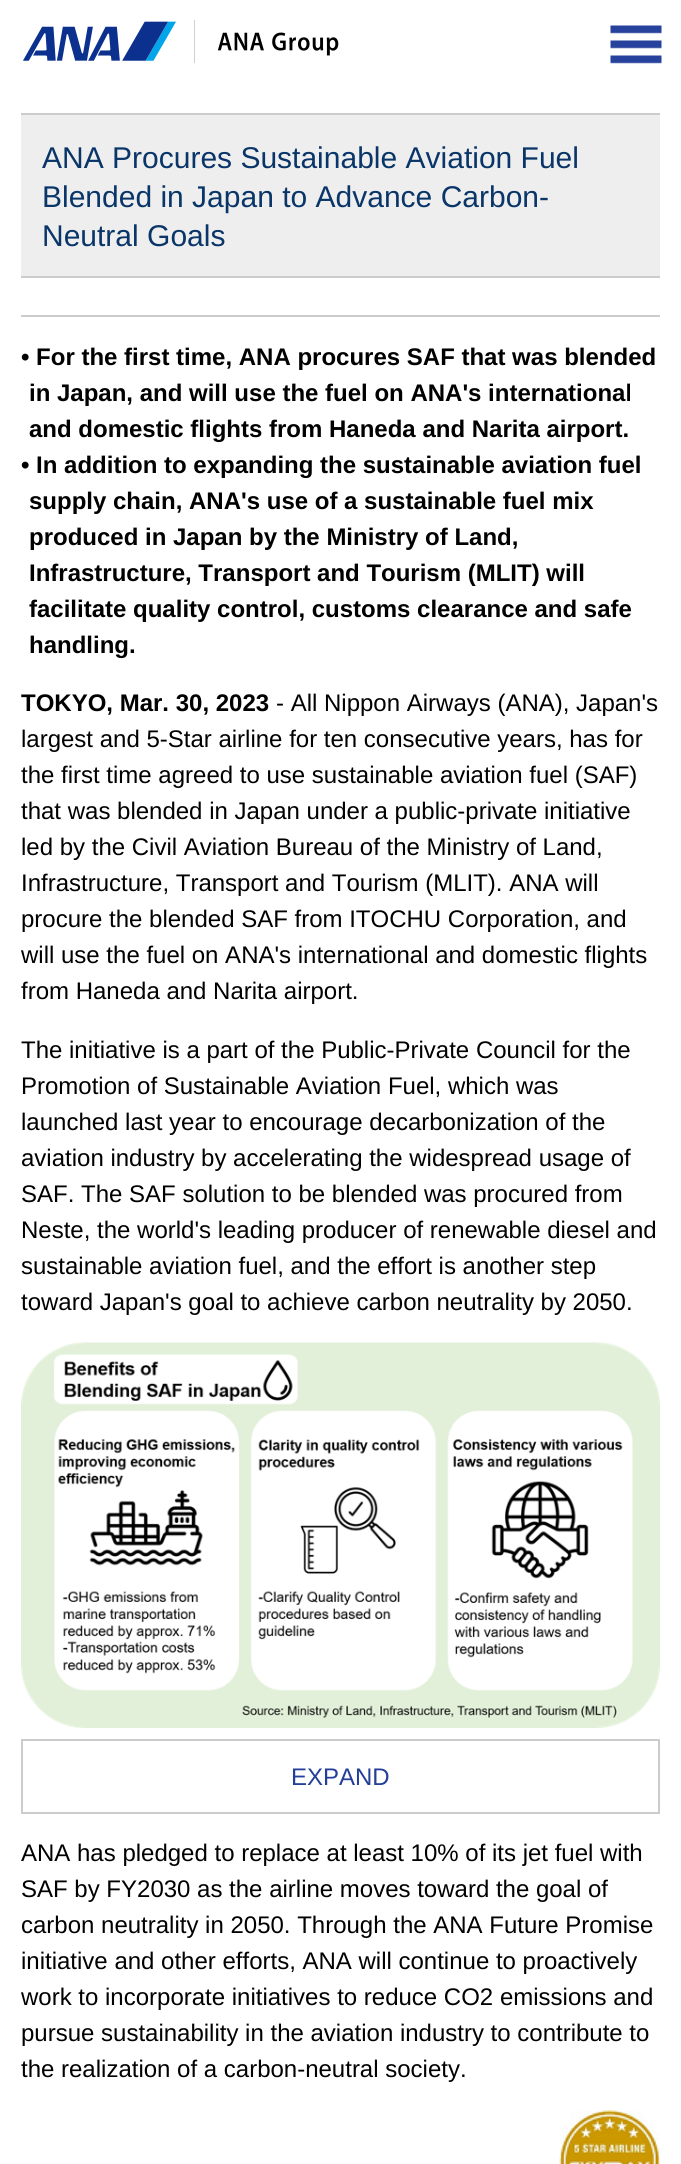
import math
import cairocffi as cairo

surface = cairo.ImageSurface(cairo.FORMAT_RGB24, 681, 2164)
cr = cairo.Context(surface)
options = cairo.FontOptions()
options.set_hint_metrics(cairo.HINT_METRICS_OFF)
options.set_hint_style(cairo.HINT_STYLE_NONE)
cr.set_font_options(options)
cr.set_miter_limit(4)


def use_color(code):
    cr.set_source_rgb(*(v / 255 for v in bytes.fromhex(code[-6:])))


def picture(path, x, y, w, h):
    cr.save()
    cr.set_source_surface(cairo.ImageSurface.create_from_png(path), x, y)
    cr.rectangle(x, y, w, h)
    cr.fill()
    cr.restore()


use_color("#ffffff")
cr.paint()
picture("img1.png", 23, 20, 316, 43)
picture("img2.png", 610, 25, 52, 39)
use_color("#eeeeee")
cr.rectangle(21, 115, 639, 161)
cr.fill()
use_color("#cccccc")
cr.rectangle(21, 113, 639, 2)
cr.fill()
cr.rectangle(21, 276, 639, 2)
cr.fill()
cr.select_font_face("Liberation Sans")
cr.set_font_size(30)
use_color("#093568")
cr.move_to(42, 168)
cr.show_text("ANA Procures Sustainable Aviation Fuel")
cr.move_to(42, 207)
cr.show_text("Blended in Japan to Advance Carbon-")
cr.move_to(42, 246)
cr.show_text("Neutral Goals")
use_color("#cccccc")
cr.rectangle(21, 315, 639, 2)
cr.fill()
cr.select_font_face("Liberation Sans", cairo.FONT_SLANT_NORMAL, cairo.FONT_WEIGHT_BOLD)
cr.set_font_size(24)
use_color("#000000")
cr.move_to(21, 365)
cr.show_text("• For the first time, ANA procures SAF that was blended")
cr.move_to(29, 401)
cr.show_text("in Japan, and will use the fuel on ANA's international")
cr.move_to(29, 437)
cr.show_text("and domestic flights from Haneda and Narita airport.")
cr.move_to(21, 473)
cr.show_text("• In addition to expanding the sustainable aviation fuel")
cr.move_to(29, 509)
cr.show_text("supply chain, ANA's use of a sustainable fuel mix")
cr.move_to(29, 545)
cr.show_text("produced in Japan by the Ministry of Land,")
cr.move_to(29, 581)
cr.show_text("Infrastructure, Transport and Tourism (MLIT) will")
cr.move_to(29, 617)
cr.show_text("facilitate quality control, customs clearance and safe")
cr.move_to(29, 653)
cr.show_text("handling.")
cr.move_to(21, 711)
cr.show_text("TOKYO, Mar. 30, 2023")
cr.select_font_face("Liberation Sans")
cr.move_to(276, 711)
cr.show_text("- All Nippon Airways (ANA), Japan's")
cr.move_to(21, 747)
cr.show_text("largest and 5-Star airline for ten consecutive years, has for")
cr.move_to(21, 783)
cr.show_text("the first time agreed to use sustainable aviation fuel (SAF)")
cr.move_to(21, 819)
cr.show_text("that was blended in Japan under a public-private initiative")
cr.move_to(21, 855)
cr.show_text("led by the Civil Aviation Bureau of the Ministry of Land,")
cr.move_to(21, 891)
cr.show_text("Infrastructure, Transport and Tourism (MLIT). ANA will")
cr.move_to(21, 927)
cr.show_text("procure the blended SAF from ITOCHU Corporation, and")
cr.move_to(21, 963)
cr.show_text("will use the fuel on ANA's international and domestic flights")
cr.move_to(21, 999)
cr.show_text("from Haneda and Narita airport.")
cr.move_to(21, 1058)
cr.show_text("The initiative is a part of the Public-Private Council for the")
cr.move_to(21, 1094)
cr.show_text("Promotion of Sustainable Aviation Fuel, which was")
cr.move_to(21, 1130)
cr.show_text("launched last year to encourage decarbonization of the")
cr.move_to(21, 1166)
cr.show_text("aviation industry by accelerating the widespread usage of")
cr.move_to(21, 1202)
cr.show_text("SAF. The SAF solution to be blended was procured from")
cr.move_to(21, 1238)
cr.show_text("Neste, the world's leading producer of renewable diesel and")
cr.move_to(21, 1274)
cr.show_text("sustainable aviation fuel, and the effort is another step")
cr.move_to(21, 1310)
cr.show_text("toward Japan's goal to achieve carbon neutrality by 2050.")
picture("img3.png", 21, 1342, 639, 386)
cr.rectangle(22, 1740, 637, 73)
use_color("#cccccc")
cr.stroke()
use_color("#223f9a")
cr.move_to(291, 1785)
cr.show_text("EXPAND")
use_color("#000000")
cr.move_to(21, 1861)
cr.show_text("ANA has pledged to replace at least 10% of its jet fuel with")
cr.move_to(21, 1897)
cr.show_text("SAF by FY2030 as the airline moves toward the goal of")
cr.move_to(21, 1933)
cr.show_text("carbon neutrality in 2050. Through the ANA Future Promise")
cr.move_to(21, 1969)
cr.show_text("initiative and other efforts, ANA will continue to proactively")
cr.move_to(21, 2005)
cr.show_text("work to incorporate initiatives to reduce CO2 emissions and")
cr.move_to(21, 2041)
cr.show_text("pursue sustainability in the aviation industry to contribute to")
cr.move_to(21, 2077)
cr.show_text("the realization of a carbon-neutral society.")
picture("img4.png", 559, 2110, 101, 54)
surface.write_to_png("result.png")
